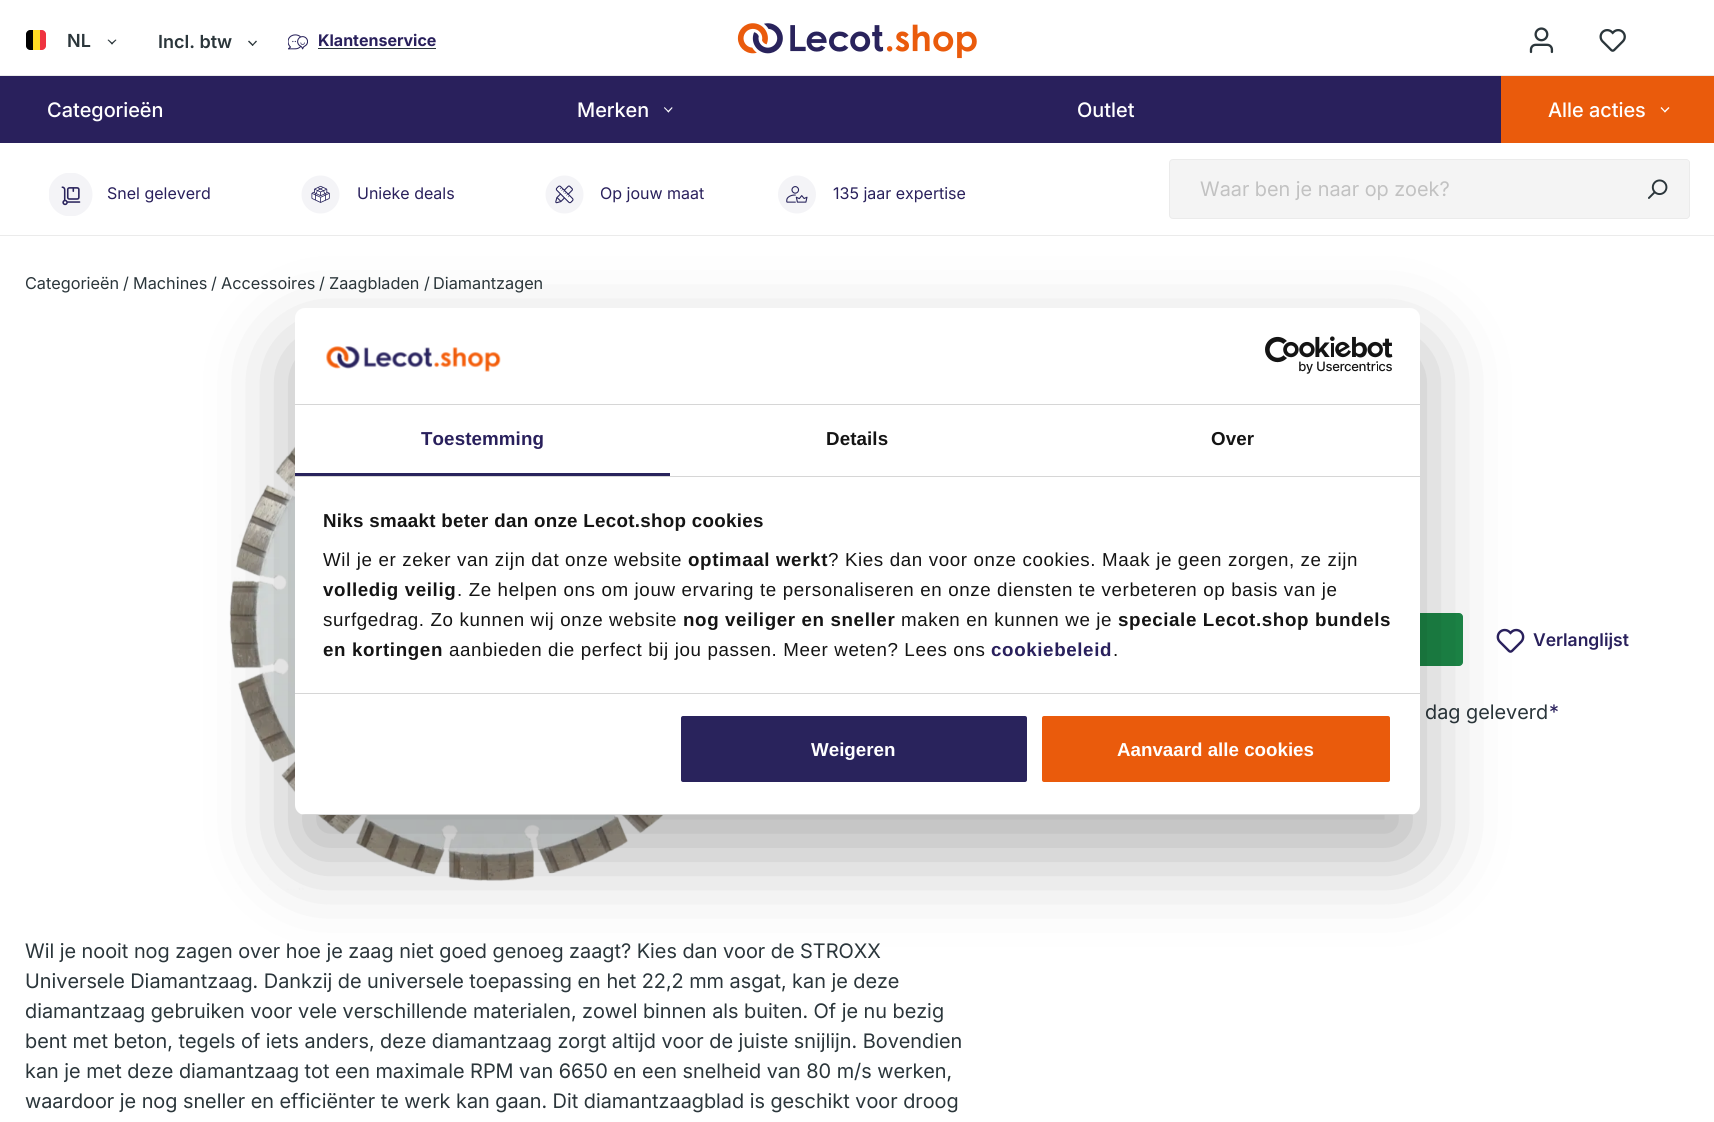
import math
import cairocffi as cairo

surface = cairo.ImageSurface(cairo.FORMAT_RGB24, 1714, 1122)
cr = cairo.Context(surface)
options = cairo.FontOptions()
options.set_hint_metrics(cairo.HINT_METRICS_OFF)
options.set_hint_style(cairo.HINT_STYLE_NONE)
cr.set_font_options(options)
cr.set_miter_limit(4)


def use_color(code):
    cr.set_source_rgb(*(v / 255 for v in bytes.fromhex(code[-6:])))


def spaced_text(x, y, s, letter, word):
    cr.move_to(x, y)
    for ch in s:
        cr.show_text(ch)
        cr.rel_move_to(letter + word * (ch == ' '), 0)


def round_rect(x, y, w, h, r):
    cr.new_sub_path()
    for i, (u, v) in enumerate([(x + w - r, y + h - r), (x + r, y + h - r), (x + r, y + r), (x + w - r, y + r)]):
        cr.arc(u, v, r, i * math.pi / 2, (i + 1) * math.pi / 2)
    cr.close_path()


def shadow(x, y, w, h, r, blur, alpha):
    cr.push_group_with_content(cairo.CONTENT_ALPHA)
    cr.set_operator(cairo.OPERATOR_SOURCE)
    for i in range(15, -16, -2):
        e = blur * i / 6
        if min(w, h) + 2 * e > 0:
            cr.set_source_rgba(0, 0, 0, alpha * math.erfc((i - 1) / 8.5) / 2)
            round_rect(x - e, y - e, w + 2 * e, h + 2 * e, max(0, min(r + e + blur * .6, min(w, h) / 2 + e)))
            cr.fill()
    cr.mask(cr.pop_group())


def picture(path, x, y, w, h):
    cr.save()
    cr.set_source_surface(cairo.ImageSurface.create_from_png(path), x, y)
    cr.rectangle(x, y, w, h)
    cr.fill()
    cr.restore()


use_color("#ffffff")
cr.paint()
use_color("#ebebeb")
cr.rectangle(0, 75, 1714, 1)
cr.fill()
use_color("#000000")
cr.new_path()
cr.move_to(30, 30)
cr.line_to(33, 30)
cr.line_to(33, 50)
cr.line_to(30, 50)
cr.curve_to(28, 50, 26, 48, 26, 46)
cr.line_to(26, 34)
cr.curve_to(26, 32, 28, 30, 30, 30)
cr.close_path()
cr.fill()
use_color("#fdda24")
cr.rectangle(33, 30, 7, 20)
cr.fill()
use_color("#ef3340")
cr.new_path()
cr.move_to(40, 30)
cr.line_to(42, 30)
cr.curve_to(44, 30, 46, 32, 46, 34)
cr.line_to(46, 46)
cr.curve_to(46, 48, 44, 50, 42, 50)
cr.line_to(40, 50)
cr.close_path()
cr.fill()
cr.select_font_face("Inter SemiBold")
cr.set_font_size(18)
use_color("#2b363b")
cr.move_to(67, 47)
cr.show_text("NL")
cr.new_path()
cr.move_to(115.5, 39.5)
cr.line_to(116.5, 40)
cr.line_to(112, 44.5)
cr.line_to(111, 43.5)
cr.close_path()
cr.fill()
cr.new_path()
cr.move_to(108.5, 39.5)
cr.line_to(113, 43.5)
cr.line_to(112, 44.5)
cr.line_to(107.5, 40)
cr.close_path()
cr.fill()
cr.move_to(158, 48)
cr.show_text("Incl. btw")
cr.new_path()
cr.move_to(256, 40.5)
cr.line_to(257, 41.5)
cr.line_to(252.5, 46)
cr.line_to(252, 45)
cr.close_path()
cr.fill()
cr.new_path()
cr.move_to(249, 40.5)
cr.line_to(253.5, 45)
cr.line_to(252.5, 46)
cr.line_to(248, 41.5)
cr.close_path()
cr.fill()
picture("img1.png", 288, 34, 20, 16)
cr.select_font_face("Inter", cairo.FONT_SLANT_NORMAL, cairo.FONT_WEIGHT_BOLD)
cr.set_font_size(16)
use_color("#29205c")
cr.move_to(318, 46)
cr.show_text("Klantenservice")
use_color("#2b363b")
cr.rectangle(318, 48, 118, 1)
cr.fill()
picture("img2.png", 737, 23, 240, 36)
picture("img3.png", 1529, 27, 25, 27)
picture("img4.png", 1599, 29, 27, 23)
use_color("#29205c")
cr.rectangle(0, 76, 1501, 67)
cr.fill()
cr.select_font_face("Inter Medium")
cr.set_font_size(20)
use_color("#ffffff")
cr.move_to(47, 117)
cr.show_text("Categorieën")
cr.move_to(577, 117)
cr.show_text("Merken")
cr.new_path()
cr.move_to(672, 107)
cr.line_to(672.5, 108)
cr.line_to(668.5, 112.5)
cr.line_to(667.5, 111.5)
cr.close_path()
cr.fill()
cr.new_path()
cr.move_to(664.5, 107)
cr.line_to(669, 111.5)
cr.line_to(668.5, 112.5)
cr.line_to(664, 108)
cr.close_path()
cr.fill()
cr.move_to(1077, 117)
cr.show_text("Outlet")
use_color("#ea5b0c")
cr.rectangle(1501, 76, 213, 67)
cr.fill()
use_color("#ffffff")
cr.move_to(1548, 117)
cr.show_text("Alle acties")
cr.new_path()
cr.move_to(1668.5, 107)
cr.line_to(1669.5, 108)
cr.line_to(1665, 112.5)
cr.line_to(1664, 111.5)
cr.close_path()
cr.fill()
cr.new_path()
cr.move_to(1661.5, 107)
cr.line_to(1665.5, 111.5)
cr.line_to(1665, 112.5)
cr.line_to(1660.5, 108)
cr.close_path()
cr.fill()
use_color("#ebebeb")
cr.rectangle(0, 235, 1714, 1)
cr.fill()
picture("img5.png", 49, 173, 44, 43)
cr.select_font_face("Inter")
cr.set_font_size(16)
use_color("#29205c")
cr.move_to(107, 199)
cr.show_text("Snel geleverd")
picture("img6.png", 301, 175, 39, 39)
cr.move_to(357, 199)
cr.show_text("Unieke deals")
picture("img7.png", 545, 175, 39, 39)
cr.move_to(600, 199)
cr.show_text("Op jouw maat")
picture("img8.png", 778, 175, 38, 39)
cr.move_to(833, 199)
cr.show_text("135 jaar expertise")
use_color("#f4f4f4")
cr.new_path()
cr.move_to(1173, 159.5)
cr.line_to(1625.5, 159.5)
cr.line_to(1625.5, 218.5)
cr.line_to(1173, 218.5)
cr.curve_to(1171, 218.5, 1169.5, 217, 1169.5, 215)
cr.line_to(1169.5, 163)
cr.curve_to(1169.5, 161, 1171, 159.5, 1173, 159.5)
cr.close_path()
cr.fill_preserve()
use_color("#ebebeb")
cr.set_line_width(1)
cr.stroke()
cr.select_font_face("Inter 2")
cr.set_font_size(20)
use_color("#c2c2c2")
cr.move_to(1200, 196)
cr.show_text("Waar ben je naar op zoek?")
use_color("#f4f4f4")
cr.new_path()
cr.move_to(1625, 159)
cr.line_to(1686, 159)
cr.curve_to(1688, 159, 1690, 161, 1690, 163)
cr.line_to(1690, 215)
cr.curve_to(1690, 217, 1688, 219, 1686, 219)
cr.line_to(1625, 219)
cr.close_path()
cr.fill()
use_color("#ebebeb")
cr.set_fill_rule(cairo.FILL_RULE_EVEN_ODD)
cr.new_path()
cr.move_to(1625, 159)
cr.line_to(1686, 159)
cr.curve_to(1688, 159, 1690, 161, 1690, 163)
cr.line_to(1690, 215)
cr.curve_to(1690, 217, 1688, 219, 1686, 219)
cr.line_to(1625, 219)
cr.close_path()
cr.move_to(1625, 160)
cr.line_to(1686, 160)
cr.curve_to(1688, 160, 1689, 161, 1689, 163)
cr.line_to(1689, 215)
cr.curve_to(1689, 216, 1688, 218, 1686, 218)
cr.line_to(1625, 218)
cr.close_path()
cr.fill()
picture("img9.png", 1648, 179, 20, 20)
cr.select_font_face("Inter")
cr.set_font_size(16.25)
use_color("#2b363b")
cr.move_to(25, 289)
cr.show_text("Categorieën")
cr.move_to(123, 289)
cr.show_text("/")
cr.move_to(133, 289)
cr.show_text("Machines")
cr.move_to(211, 289)
cr.show_text("/")
cr.move_to(221, 289)
cr.show_text("Accessoires")
cr.move_to(319, 289)
cr.show_text("/")
cr.move_to(329, 289)
cr.show_text("Zaagbladen")
cr.move_to(424, 289)
cr.show_text("/")
cr.move_to(433, 289)
cr.show_text("Diamantzagen")
picture("img10.png", 229, 446, 435, 444)
use_color("#1c8747")
round_rect(1018.5, 613.5, 444, 52, 3.5)
cr.fill_preserve()
cr.stroke()
picture("img11.png", 1496, 628, 29, 25)
cr.select_font_face("Inter SemiBold")
cr.set_font_size(17.5)
use_color("#29205c")
cr.move_to(1533, 646)
cr.show_text("Verlanglijst")
cr.select_font_face("Inter 2")
cr.set_font_size(20)
use_color("#2b363b")
cr.move_to(1425, 719)
cr.show_text("dag geleverd")
use_color("#29205c")
cr.move_to(1549, 719)
cr.show_text("*")
use_color("#2b363b")
cr.move_to(25, 958)
cr.show_text("Wil je nooit nog zagen over hoe je zaag niet goed genoeg zaagt? Kies dan voor de STROXX")
cr.move_to(25, 988)
cr.show_text("Universele Diamantzaag. Dankzij de universele toepassing en het 22,2 mm asgat, kan je deze")
cr.move_to(25, 1018)
cr.show_text("diamantzaag gebruiken voor vele verschillende materialen, zowel binnen als buiten. Of je nu bezig")
cr.move_to(25, 1048)
cr.show_text("bent met beton, tegels of iets anders, deze diamantzaag zorgt altijd voor de juiste snijlijn. Bovendien")
cr.move_to(25, 1078)
cr.show_text("kan je met deze diamantzaag tot een maximale RPM van 6650 en een snelheid van 80 m/s werken,")
cr.move_to(25, 1108)
cr.show_text("waardoor je nog sneller en efficiënter te werk kan gaan. Dit diamantzaagblad is geschikt voor droog")
use_color("#000000")
shadow(295, 348, 1125, 507, 10, 42.5, 0.3)
use_color("#ffffff")
round_rect(295, 308, 1125, 507, 10)
cr.fill()
use_color("#d6d6d6")
cr.rectangle(295, 404, 1125, 1)
cr.fill()
picture("img12.png", 326, 346, 175, 26)
picture("img13.png", 1265, 336, 128, 38)
cr.rectangle(295, 476, 1125, 1)
cr.fill()
use_color("#29235c")
cr.rectangle(295, 473, 375, 3)
cr.fill()
cr.select_font_face("Liberation Sans", cairo.FONT_SLANT_NORMAL, cairo.FONT_WEIGHT_BOLD)
cr.set_font_size(18.75)
use_color("#29205c")
spaced_text(421, 445, "Toestemming", 0.1, 0)
use_color("#141414")
spaced_text(826, 445, "Details", 0.1, 0)
spaced_text(1211, 445, "Over", 0.1, 0)
use_color("#d6d6d6")
cr.rectangle(295, 693, 1125, 1)
cr.fill()
use_color("#141414")
spaced_text(323, 527, "Niks smaakt beter dan onze Lecot.shop cookies", 0.3, 0)
cr.select_font_face("Liberation Sans")
spaced_text(323, 566, "Wil je er zeker van zijn dat onze website", 0.62, 0)
cr.select_font_face("Liberation Sans", cairo.FONT_SLANT_NORMAL, cairo.FONT_WEIGHT_BOLD)
spaced_text(688, 566, "optimaal werkt", 0.62, 0)
cr.select_font_face("Liberation Sans")
spaced_text(828, 566, "? Kies dan voor onze cookies. Maak je geen zorgen, ze zijn", 0.62, 0)
cr.select_font_face("Liberation Sans", cairo.FONT_SLANT_NORMAL, cairo.FONT_WEIGHT_BOLD)
spaced_text(323, 596, "volledig veilig", 0.62, 0)
cr.select_font_face("Liberation Sans")
spaced_text(457, 596, ". Ze helpen ons om jouw ervaring te personaliseren en onze diensten te verbeteren op basis van je", 0.62, 0)
spaced_text(323, 626, "surfgedrag. Zo kunnen wij onze website", 0.62, 0)
cr.select_font_face("Liberation Sans", cairo.FONT_SLANT_NORMAL, cairo.FONT_WEIGHT_BOLD)
spaced_text(683, 626, "nog veiliger en sneller", 0.62, 0)
cr.select_font_face("Liberation Sans")
spaced_text(901, 626, "maken en kunnen we je", 0.62, 0)
cr.select_font_face("Liberation Sans", cairo.FONT_SLANT_NORMAL, cairo.FONT_WEIGHT_BOLD)
spaced_text(1118, 626, "speciale Lecot.shop bundels", 0.62, 0)
spaced_text(323, 656, "en kortingen", 0.62, 0)
cr.select_font_face("Liberation Sans")
spaced_text(449, 656, "aanbieden die perfect bij jou passen. Meer weten? Lees ons", 0.62, 0)
cr.select_font_face("Liberation Sans", cairo.FONT_SLANT_NORMAL, cairo.FONT_WEIGHT_BOLD)
use_color("#29205c")
spaced_text(991, 656, "cookiebeleid", 0.62, 0)
cr.select_font_face("Liberation Sans")
use_color("#141414")
spaced_text(1113, 656, ".", 0.62, 0)
cr.save()
cr.set_fill_rule(cairo.FILL_RULE_WINDING)
round_rect(295, 308, 1125, 507, 10)
cr.clip()
use_color("#d6d6d6")
cr.rectangle(295, 814, 1125, 1)
cr.fill()
cr.restore()
use_color("#29235c")
round_rect(679.5, 714.5, 349, 69, 3.5)
cr.fill_preserve()
use_color("#ffffff")
cr.set_line_width(3)
cr.stroke()
cr.select_font_face("Liberation Sans", cairo.FONT_SLANT_NORMAL, cairo.FONT_WEIGHT_BOLD)
cr.move_to(811, 756)
cr.show_text("Weigeren")
use_color("#ea5b0c")
round_rect(1040.5, 714.5, 351, 69, 3.5)
cr.fill_preserve()
use_color("#ffffff")
cr.stroke()
cr.move_to(1117, 756)
cr.show_text("Aanvaard alle cookies")
surface.write_to_png("result.png")
